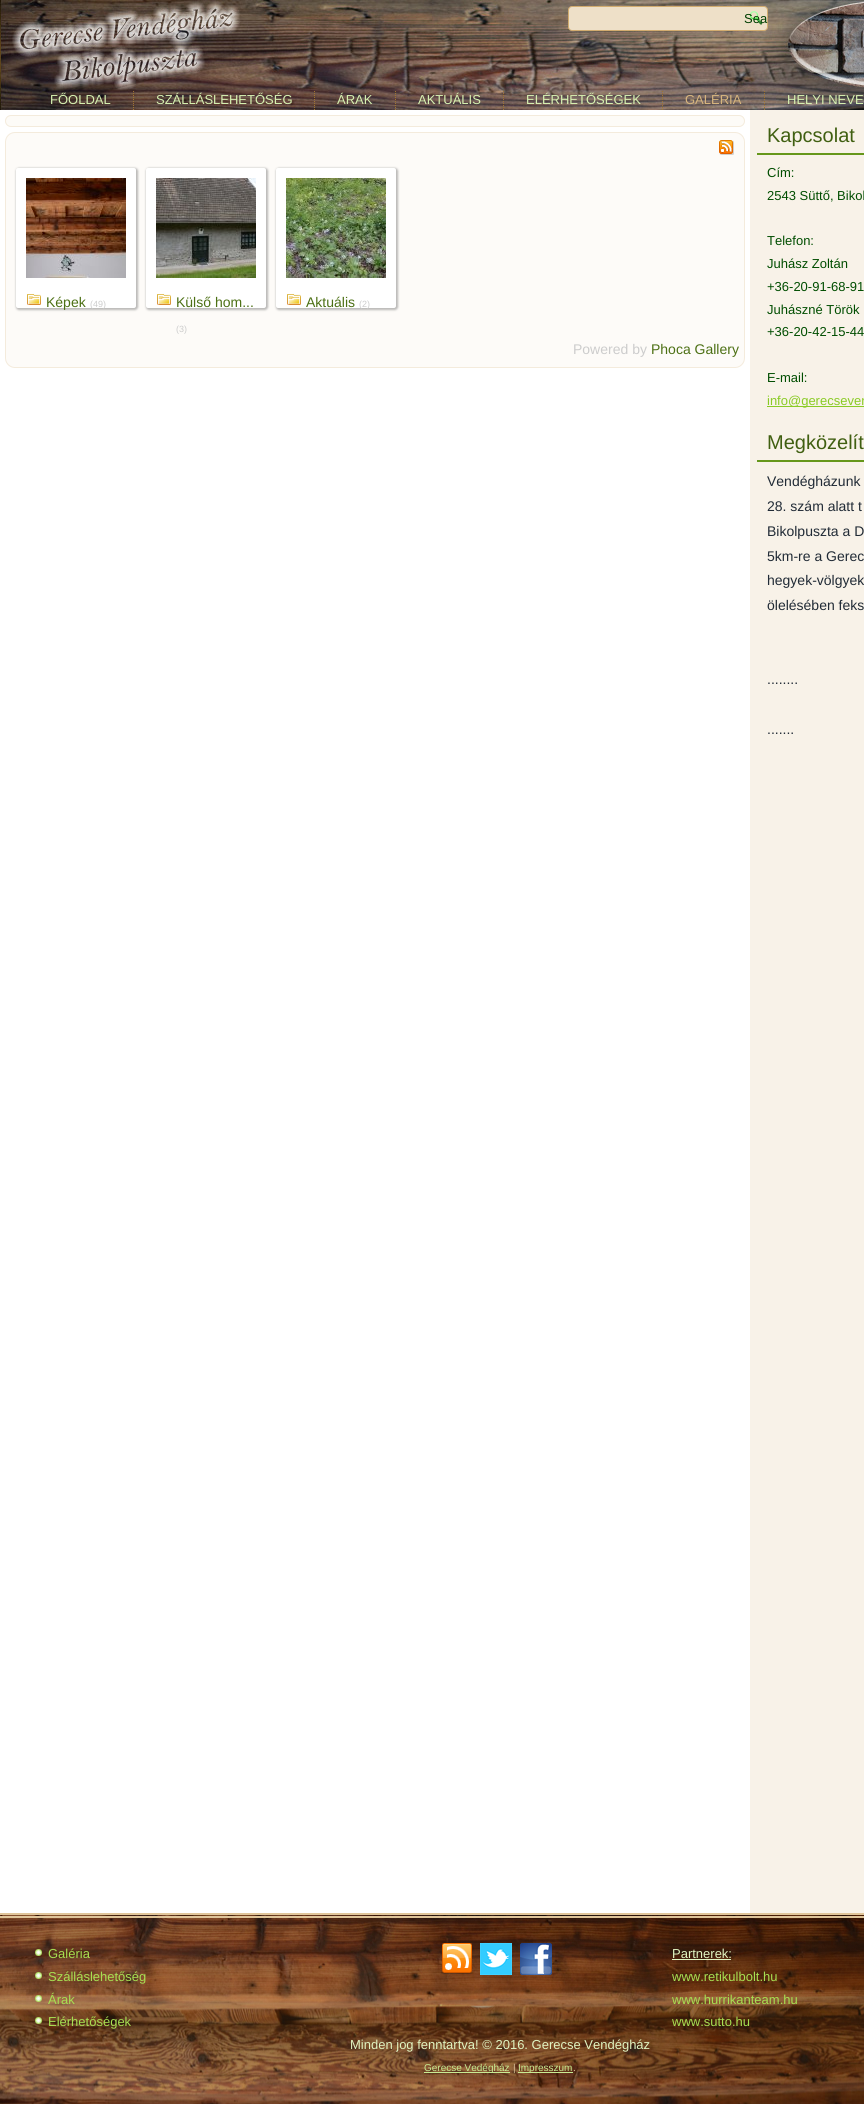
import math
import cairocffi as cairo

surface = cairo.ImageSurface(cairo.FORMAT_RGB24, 864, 2104)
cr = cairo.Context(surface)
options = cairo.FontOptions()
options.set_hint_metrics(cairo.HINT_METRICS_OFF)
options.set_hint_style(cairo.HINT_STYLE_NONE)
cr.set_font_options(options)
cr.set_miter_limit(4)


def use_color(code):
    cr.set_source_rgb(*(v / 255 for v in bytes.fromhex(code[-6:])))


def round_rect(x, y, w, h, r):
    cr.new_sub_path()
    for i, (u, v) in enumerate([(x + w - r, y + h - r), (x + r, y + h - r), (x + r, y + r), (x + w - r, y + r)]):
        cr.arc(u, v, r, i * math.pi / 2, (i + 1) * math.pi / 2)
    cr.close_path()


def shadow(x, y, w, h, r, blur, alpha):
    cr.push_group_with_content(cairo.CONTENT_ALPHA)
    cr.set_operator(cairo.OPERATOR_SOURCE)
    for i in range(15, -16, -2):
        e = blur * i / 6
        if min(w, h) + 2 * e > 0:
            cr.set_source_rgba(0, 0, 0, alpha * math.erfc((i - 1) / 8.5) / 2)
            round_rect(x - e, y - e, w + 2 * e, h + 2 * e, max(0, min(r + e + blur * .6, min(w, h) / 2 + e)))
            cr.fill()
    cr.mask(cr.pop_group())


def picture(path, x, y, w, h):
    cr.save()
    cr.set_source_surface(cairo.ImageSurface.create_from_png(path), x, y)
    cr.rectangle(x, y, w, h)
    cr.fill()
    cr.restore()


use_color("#ffffff")
cr.paint()
picture("img1.png", 0, 0, 864, 110)
use_color("#eee0c8")
round_rect(568.5, 6.5, 199, 24, 3.5)
cr.fill_preserve()
use_color("#d2ac6f")
cr.set_line_width(1)
cr.stroke()
picture("img2.png", 749, 11, 14, 14)
cr.select_font_face("Liberation Sans")
cr.set_font_size(13)
use_color("#003d00")
cr.move_to(744, 23)
cr.show_text("Sea")
use_color("#d7f1b1")
cr.move_to(50, 104)
cr.show_text("FŐOLDAL")
picture("img3.png", 133, 91, 1, 19)
cr.move_to(156, 104)
cr.show_text("SZÁLLÁSLEHETŐSÉG")
picture("img4.png", 314, 91, 1, 19)
cr.move_to(337, 104)
cr.show_text("ÁRAK")
picture("img5.png", 395, 91, 1, 19)
cr.move_to(418, 104)
cr.show_text("AKTUÁLIS")
picture("img6.png", 503, 91, 1, 19)
cr.move_to(526, 104)
cr.show_text("ELÉRHETŐSÉGEK")
picture("img7.png", 662, 91, 1, 19)
use_color("#d7b57e")
cr.move_to(685, 104)
cr.show_text("GALÉRIA")
picture("img8.png", 764, 91, 1, 19)
use_color("#d7f1b1")
cr.move_to(787, 104)
cr.show_text("HELYI NEVE")
use_color("#fdfbf7")
round_rect(5.5, 115.5, 739, 11, 5.5)
cr.fill_preserve()
use_color("#f4ebdc")
cr.stroke()
use_color("#fdfbf8")
round_rect(5, 132, 740, 236, 10)
cr.fill()
round_rect(5.5, 132.5, 739, 235, 9.5)
cr.set_source_rgba(0.824, 0.675, 0.435, 0.2)
cr.stroke()
picture("img9.png", 719, 140, 15, 15)
use_color("#787878")
shadow(16, 168, 122, 142, 3, 1, 0.5)
use_color("#ffffff")
round_rect(16, 168, 120, 140, 2)
cr.fill()
picture("img10.png", 26, 178, 100, 100)
picture("img11.png", 27, 294, 14, 11)
cr.set_font_size(14)
use_color("#4c7014")
cr.move_to(46, 307)
cr.show_text("Képek")
cr.set_font_size(9)
use_color("#cccccc")
cr.move_to(90, 307)
cr.show_text("(49)")
use_color("#787878")
shadow(146, 168, 122, 142, 3, 1, 0.5)
use_color("#ffffff")
round_rect(146, 168, 120, 140, 2)
cr.fill()
picture("img12.png", 156, 178, 100, 100)
picture("img11.png", 157, 294, 14, 11)
cr.set_font_size(14)
use_color("#4c7014")
cr.move_to(176, 307)
cr.show_text("Külső hom...")
cr.set_font_size(9)
use_color("#cccccc")
cr.move_to(176, 332)
cr.show_text("(3)")
use_color("#787878")
shadow(276, 168, 122, 142, 3, 1, 0.5)
use_color("#ffffff")
round_rect(276, 168, 120, 140, 2)
cr.fill()
picture("img13.png", 286, 178, 100, 100)
picture("img11.png", 287, 294, 14, 11)
cr.set_font_size(14)
use_color("#4c7014")
cr.move_to(306, 307)
cr.show_text("Aktuális")
cr.set_font_size(9)
use_color("#cccccc")
cr.move_to(359, 307)
cr.show_text("(2)")
cr.set_font_size(14)
cr.move_to(573, 354)
cr.show_text("Powered by")
use_color("#4c7014")
cr.move_to(651, 354)
cr.show_text("Phoca Gallery")
use_color("#f8f2e8")
cr.rectangle(750, 110, 114, 1803)
cr.fill()
use_color("#66971b")
cr.rectangle(757, 153, 107, 2)
cr.fill()
cr.set_font_size(20)
use_color("#405f11")
cr.move_to(767, 142)
cr.show_text("Kapcsolat")
cr.set_font_size(13)
use_color("#004d00")
cr.move_to(767, 177)
cr.show_text("Cím:")
cr.move_to(767, 200)
cr.show_text("2543 Süttő, Bikol")
cr.move_to(767, 245)
cr.show_text("Telefon:")
cr.move_to(767, 268)
cr.show_text("Juhász Zoltán")
cr.move_to(767, 291)
cr.show_text("+36-20-91-68-91")
cr.move_to(767, 314)
cr.show_text("Juhászné Török")
cr.move_to(767, 336)
cr.show_text("+36-20-42-15-44")
cr.move_to(767, 382)
cr.show_text("E-mail:")
use_color("#89cb24")
cr.rectangle(767, 406, 97, 1)
cr.fill()
cr.move_to(767, 405)
cr.show_text("info@gerecseven")
use_color("#66971b")
cr.rectangle(757, 460, 107, 2)
cr.fill()
cr.set_font_size(20)
use_color("#405f11")
cr.move_to(767, 449)
cr.show_text("Megközelít")
cr.set_font_size(14)
use_color("#212b36")
cr.move_to(767, 486)
cr.show_text("Vendégházunk")
cr.move_to(767, 511)
cr.show_text("28. szám alatt t")
cr.move_to(767, 536)
cr.show_text("Bikolpuszta a D")
cr.move_to(767, 561)
cr.show_text("5km-re a Gerec")
cr.move_to(767, 585)
cr.show_text("hegyek-völgyek")
cr.move_to(767, 610)
cr.show_text("ölelésében feks")
cr.move_to(767, 684)
cr.show_text("........")
cr.move_to(767, 734)
cr.show_text(".......")
picture("img14.png", 0, 1915, 864, 189)
use_color("#e0c59a")
cr.rectangle(0, 1913, 864, 2)
cr.fill()
cr.rectangle(0, 1916, 864, 2)
cr.fill()
picture("img15.png", 35, 1949, 7, 7)
cr.set_font_size(13)
use_color("#a7e052")
cr.move_to(48, 1958)
cr.show_text("Galéria")
picture("img16.png", 35, 1972, 7, 7)
cr.move_to(48, 1981)
cr.show_text("Szálláslehetőség")
picture("img17.png", 35, 1995, 7, 7)
cr.move_to(48, 2004)
cr.show_text("Árak")
picture("img18.png", 35, 2017, 7, 7)
cr.move_to(48, 2026)
cr.show_text("Elérhetőségek")
picture("img19.png", 441, 1943, 32, 31)
picture("img20.png", 480, 1943, 32, 32)
picture("img21.png", 520, 1943, 32, 32)
use_color("#e0f4c2")
cr.move_to(672, 1958)
cr.show_text("Partnerek:")
cr.rectangle(672, 1959, 59, 1)
cr.fill()
use_color("#a7e052")
cr.move_to(672, 1981)
cr.show_text("www.retikulbolt.hu")
cr.move_to(672, 2004)
cr.show_text("www.hurrikanteam.hu")
cr.move_to(672, 2026)
cr.show_text("www.sutto.hu")
use_color("#e0f4c2")
cr.move_to(350, 2049)
cr.show_text("Minden jog fenntartva! © 2016. Gerecse Vendégház")
use_color("#c8ec93")
cr.rectangle(424, 2072, 86, 1)
cr.fill()
cr.set_font_size(10)
cr.move_to(424, 2071)
cr.show_text("Gerecse Vedégház")
use_color("#e1c79e")
cr.move_to(513, 2071)
cr.show_text("|")
use_color("#c8ec93")
cr.rectangle(518, 2072, 55, 1)
cr.fill()
cr.move_to(518, 2071)
cr.show_text("Impresszum")
use_color("#e1c79e")
cr.move_to(573, 2071)
cr.show_text(".")
surface.write_to_png("result.png")
